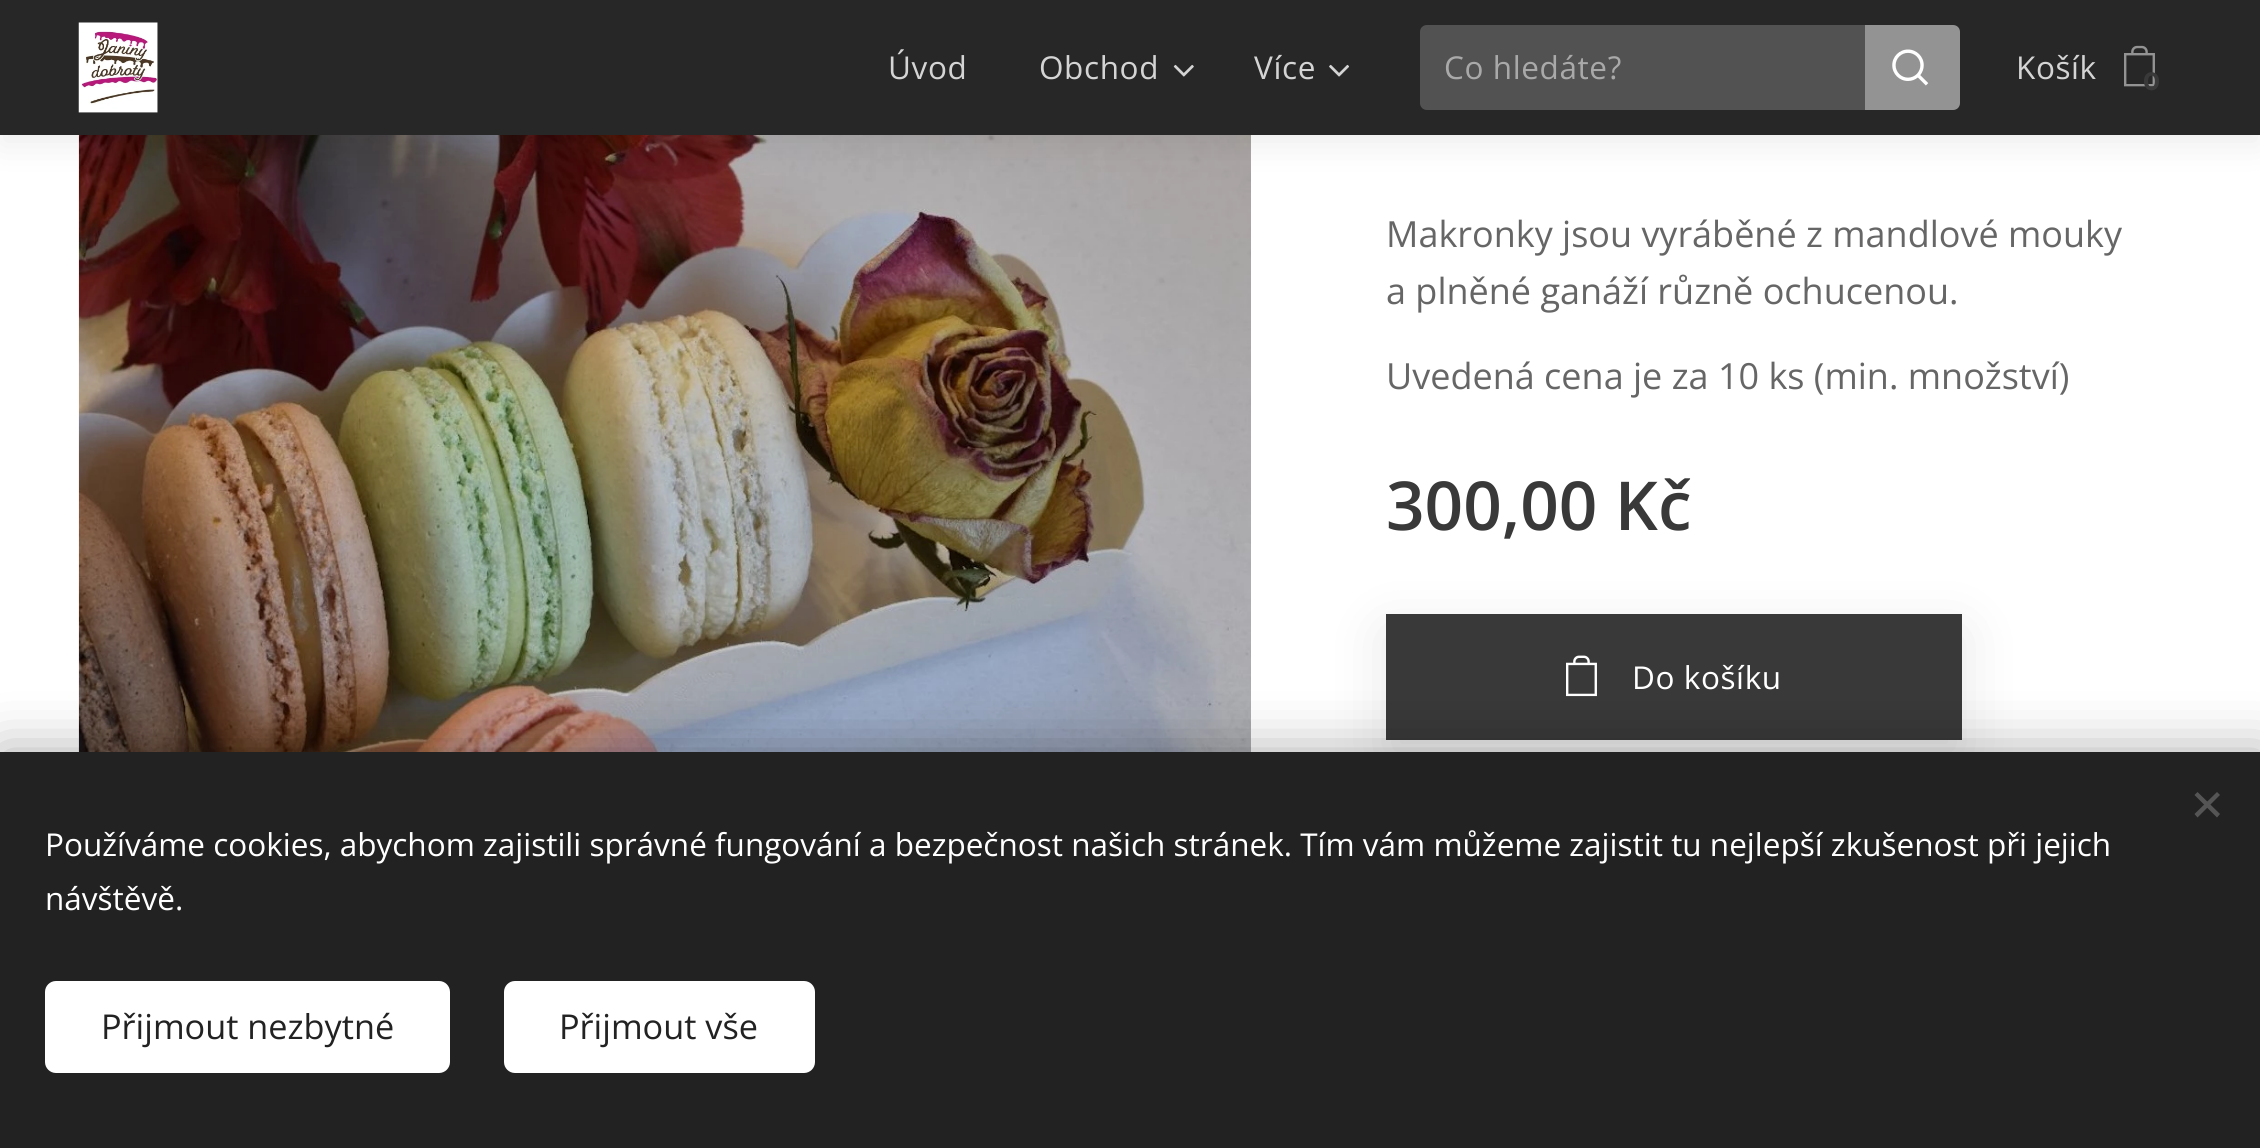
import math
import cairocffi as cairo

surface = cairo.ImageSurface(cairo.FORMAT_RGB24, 2260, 1148)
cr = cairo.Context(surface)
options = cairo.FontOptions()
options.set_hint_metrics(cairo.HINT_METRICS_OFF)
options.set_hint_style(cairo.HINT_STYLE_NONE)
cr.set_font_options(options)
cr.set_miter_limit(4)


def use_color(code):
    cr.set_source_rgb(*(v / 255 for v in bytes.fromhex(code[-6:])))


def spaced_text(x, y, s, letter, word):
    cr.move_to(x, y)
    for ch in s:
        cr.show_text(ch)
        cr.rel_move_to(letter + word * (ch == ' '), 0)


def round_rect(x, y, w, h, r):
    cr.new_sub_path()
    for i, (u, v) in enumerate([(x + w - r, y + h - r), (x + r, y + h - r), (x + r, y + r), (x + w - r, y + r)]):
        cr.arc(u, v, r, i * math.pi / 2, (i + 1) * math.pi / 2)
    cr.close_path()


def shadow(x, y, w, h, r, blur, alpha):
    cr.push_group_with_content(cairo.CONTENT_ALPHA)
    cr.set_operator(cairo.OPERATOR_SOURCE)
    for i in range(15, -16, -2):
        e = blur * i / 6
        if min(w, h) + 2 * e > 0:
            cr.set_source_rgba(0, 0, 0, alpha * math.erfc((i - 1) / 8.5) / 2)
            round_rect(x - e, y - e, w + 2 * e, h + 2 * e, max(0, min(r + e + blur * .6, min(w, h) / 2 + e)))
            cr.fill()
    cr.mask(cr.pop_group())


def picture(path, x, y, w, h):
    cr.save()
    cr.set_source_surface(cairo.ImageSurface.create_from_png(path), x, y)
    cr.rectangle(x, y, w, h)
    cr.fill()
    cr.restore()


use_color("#ffffff")
cr.paint()
picture("img6.png", 78, 135, 1173, 617)
use_color("#000000")
shadow(0, 11, 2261, 135, 0, 17, 0.07)
use_color("#272727")
cr.rectangle(0, 0, 2260, 135)
cr.fill()
picture("img1.png", 78, 22, 80, 91)
cr.select_font_face("Open Sans")
cr.set_font_size(31.5)
use_color("#d4d4d4")
spaced_text(888, 79, "Úvod", 0.6, 0)
spaced_text(1039, 79, "Obchod", 0.6, 0)
picture("img2.png", 1173, 64, 21, 13)
spaced_text(1254, 79, "Více", 0.6, 0)
picture("img3.png", 1329, 64, 20, 13)
use_color("#525252")
cr.new_path()
cr.move_to(1427, 25)
cr.line_to(1865, 25)
cr.line_to(1865, 110)
cr.line_to(1427, 110)
cr.curve_to(1423, 110, 1420, 107, 1420, 103)
cr.line_to(1420, 32)
cr.curve_to(1420, 28, 1423, 25, 1427, 25)
cr.close_path()
cr.fill()
use_color("#a9a9a9")
spaced_text(1444, 79, "Co hledáte?", 0.6, 0)
use_color("#939393")
cr.new_path()
cr.move_to(1865, 25)
cr.line_to(1953, 25)
cr.curve_to(1957, 25, 1960, 28, 1960, 32)
cr.line_to(1960, 103)
cr.curve_to(1960, 107, 1957, 110, 1953, 110)
cr.line_to(1865, 110)
cr.close_path()
cr.fill()
picture("img4.png", 1892, 49, 37, 37)
use_color("#d4d4d4")
spaced_text(2016, 79, "Košík", 0.6, 0)
picture("img5.png", 2124, 45, 31, 42)
cr.select_font_face("Montserrat", cairo.FONT_SLANT_NORMAL, cairo.FONT_WEIGHT_BOLD)
cr.set_font_size(25)
use_color("#393939")
cr.move_to(2143, 90)
cr.show_text("0")
cr.select_font_face("Open Sans")
cr.set_font_size(36)
use_color("#666666")
cr.move_to(1386, 247)
cr.show_text("Makronky jsou vyráběné z mandlové mouky")
cr.move_to(1386, 304)
cr.show_text("a plněné ganáží různě ochucenou.")
cr.move_to(1386, 389)
cr.show_text("Uvedená cena je za 10 ks (min. množství)")
cr.select_font_face("Open Sans SemiBold")
cr.set_font_size(67.5)
use_color("#393939")
cr.move_to(1386, 530)
cr.show_text("300,00 Kč")
use_color("#000000")
shadow(1386, 632, 576, 126, 0, 28, 0.1)
use_color("#393939")
cr.rectangle(1386, 614, 576, 126)
cr.fill()
picture("img7.png", 1566, 655, 31, 42)
cr.select_font_face("Open Sans")
cr.set_font_size(31.5)
use_color("#ffffff")
spaced_text(1632, 689, "Do košíku", 0.6, 0)
use_color("#000000")
shadow(0, 752, 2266, 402, 0, 28, 0.33)
use_color("#222222")
cr.rectangle(0, 752, 2260, 396)
cr.fill()
use_color("#555555")
cr.new_path()
cr.move_to(2194.5, 814)
cr.line_to(2217, 792)
cr.line_to(2220, 795)
cr.line_to(2197.5, 817.5)
cr.close_path()
cr.fill()
cr.new_path()
cr.move_to(2197.5, 792)
cr.line_to(2220, 814)
cr.line_to(2217, 817.5)
cr.line_to(2194.5, 795)
cr.close_path()
cr.fill()
use_color("#ffffff")
cr.move_to(45, 856)
cr.show_text("Používáme cookies, abychom zajistili správné fungování a bezpečnost našich stránek. Tím vám můžeme zajistit tu nejlepší zkušenost při jejich")
cr.move_to(45, 910)
cr.show_text("návštěvě.")
round_rect(45, 981, 405, 92, 11)
cr.fill()
cr.set_font_size(34.25)
use_color("#222222")
cr.move_to(101, 1039)
cr.show_text("Přijmout nezbytné")
use_color("#ffffff")
round_rect(504, 981, 311, 92, 11)
cr.fill()
use_color("#222222")
cr.move_to(559, 1039)
cr.show_text("Přijmout vše")
surface.write_to_png("result.png")
